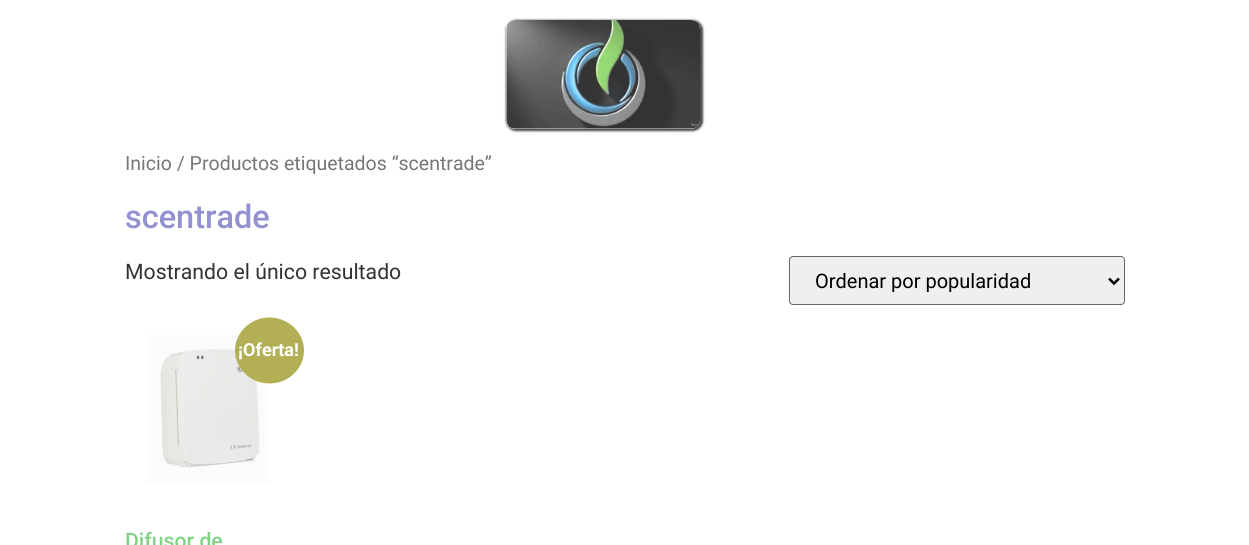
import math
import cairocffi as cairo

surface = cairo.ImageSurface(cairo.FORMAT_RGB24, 1249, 545)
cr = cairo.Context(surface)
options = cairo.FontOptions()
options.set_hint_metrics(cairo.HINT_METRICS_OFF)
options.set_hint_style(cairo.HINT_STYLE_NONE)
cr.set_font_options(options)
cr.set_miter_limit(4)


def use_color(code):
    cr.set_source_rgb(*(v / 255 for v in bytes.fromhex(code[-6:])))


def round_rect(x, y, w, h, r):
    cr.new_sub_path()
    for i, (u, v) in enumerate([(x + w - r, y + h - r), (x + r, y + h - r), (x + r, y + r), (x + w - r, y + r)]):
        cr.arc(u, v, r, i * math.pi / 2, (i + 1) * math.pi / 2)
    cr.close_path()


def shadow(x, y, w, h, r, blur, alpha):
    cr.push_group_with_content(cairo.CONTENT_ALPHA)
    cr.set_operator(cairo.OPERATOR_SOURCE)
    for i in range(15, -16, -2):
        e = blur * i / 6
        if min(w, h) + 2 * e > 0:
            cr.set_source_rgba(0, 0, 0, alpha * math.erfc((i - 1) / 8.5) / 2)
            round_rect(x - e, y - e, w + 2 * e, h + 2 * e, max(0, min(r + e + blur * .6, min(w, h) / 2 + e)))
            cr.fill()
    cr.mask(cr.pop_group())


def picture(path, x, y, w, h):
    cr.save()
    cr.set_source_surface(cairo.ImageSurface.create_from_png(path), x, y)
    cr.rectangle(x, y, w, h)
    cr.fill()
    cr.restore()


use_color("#ffffff")
cr.paint()
cr.save()
cr.set_fill_rule(cairo.FILL_RULE_EVEN_ODD)
cr.new_path()
cr.move_to(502, 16)
cr.line_to(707, 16)
cr.line_to(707, 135)
cr.line_to(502, 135)
cr.close_path()
cr.move_to(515, 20)
cr.line_to(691, 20)
cr.curve_to(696, 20, 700, 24, 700, 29)
cr.line_to(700, 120)
cr.curve_to(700, 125, 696, 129, 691, 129)
cr.line_to(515, 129)
cr.curve_to(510, 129, 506, 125, 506, 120)
cr.line_to(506, 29)
cr.curve_to(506, 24, 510, 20, 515, 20)
cr.close_path()
cr.clip()
use_color("#333333")
shadow(506, 20, 197, 111, 10, 1, 0.89)
cr.restore()
picture("img1.png", 506, 20, 194, 109)
cr.select_font_face("Roboto")
cr.set_font_size(19.5)
use_color("#767676")
cr.move_to(125, 170)
cr.show_text("Inicio / Productos etiquetados “scentrade”")
cr.select_font_face("Roboto Medium")
cr.set_font_size(32.5)
use_color("#9392d0")
cr.move_to(125, 228)
cr.show_text("scentrade")
cr.select_font_face("Roboto")
cr.set_font_size(21.25)
use_color("#333333")
cr.move_to(125, 279)
cr.show_text("Mostrando el único resultado")
use_color("#efefef")
round_rect(789.5, 256.5, 335, 48, 3.5)
cr.fill_preserve()
use_color("#666666")
cr.set_line_width(1)
cr.stroke()
cr.new_path()
cr.move_to(1109, 278.5)
cr.line_to(1114, 283.5)
cr.line_to(1119, 278.5)
use_color("#000000")
cr.set_line_width(2.5)
cr.stroke()
cr.set_font_size(20)
cr.move_to(815, 288)
cr.show_text("Ordenar por popularidad")
picture("img2.png", 148, 335, 120, 148)
use_color("#b3af54")
cr.new_path()
cr.move_to(269.5, 317.5)
cr.curve_to(288.5, 317.5, 304, 332.5, 304, 350.5)
cr.curve_to(304, 368.5, 288.5, 383.5, 269.5, 383.5)
cr.curve_to(250.5, 383.5, 235, 368.5, 235, 350.5)
cr.curve_to(235, 332.5, 250.5, 317.5, 269.5, 317.5)
cr.close_path()
cr.fill()
cr.select_font_face("Roboto", cairo.FONT_SLANT_NORMAL, cairo.FONT_WEIGHT_BOLD)
cr.set_font_size(18)
use_color("#ffffff")
cr.move_to(238, 356)
cr.show_text("¡Oferta!")
cr.select_font_face("Roboto Medium")
cr.set_font_size(21.25)
use_color("#7fd383")
cr.move_to(125, 548)
cr.show_text("Difusor de")
surface.write_to_png("result.png")
